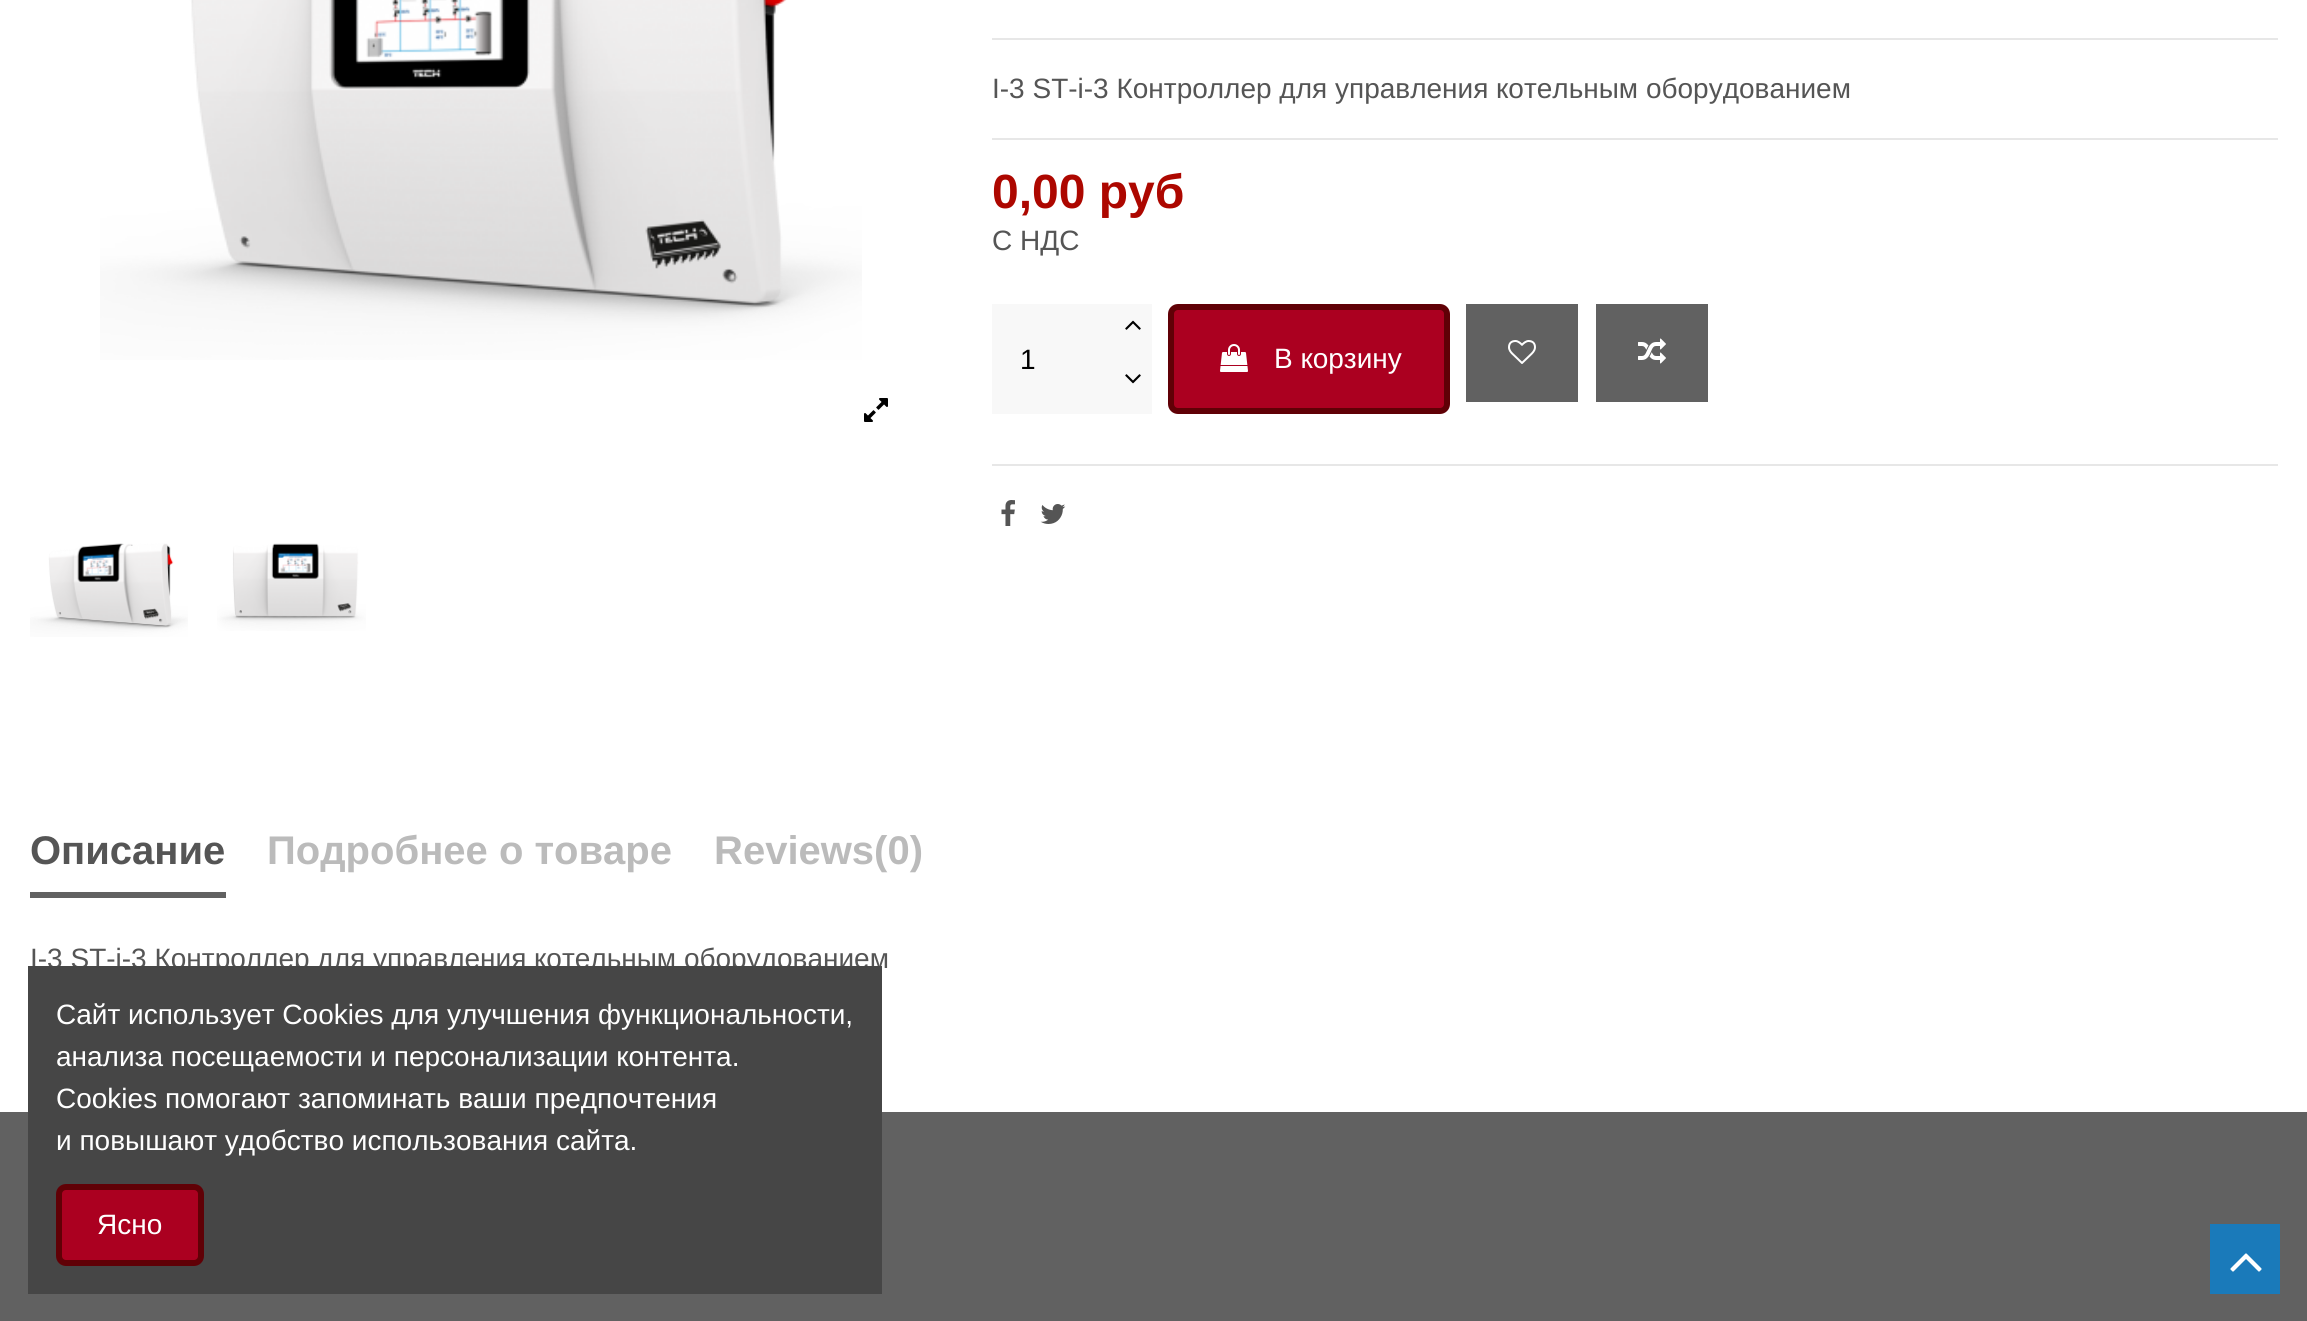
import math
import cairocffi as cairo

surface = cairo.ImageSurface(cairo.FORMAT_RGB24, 2307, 1321)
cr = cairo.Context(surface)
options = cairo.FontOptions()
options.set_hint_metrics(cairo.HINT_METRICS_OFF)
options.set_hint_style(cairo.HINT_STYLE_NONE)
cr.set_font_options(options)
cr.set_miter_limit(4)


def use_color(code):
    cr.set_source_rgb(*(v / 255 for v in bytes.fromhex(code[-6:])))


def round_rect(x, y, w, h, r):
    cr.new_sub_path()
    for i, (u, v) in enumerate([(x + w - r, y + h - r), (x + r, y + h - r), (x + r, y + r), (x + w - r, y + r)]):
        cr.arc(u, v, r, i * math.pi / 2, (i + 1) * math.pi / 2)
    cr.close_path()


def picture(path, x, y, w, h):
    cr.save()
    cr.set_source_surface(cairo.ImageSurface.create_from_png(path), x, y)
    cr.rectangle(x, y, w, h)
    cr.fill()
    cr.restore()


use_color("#ffffff")
cr.paint()
picture("img1.png", 100, 0, 762, 360)
picture("img2.png", 864, 398, 24, 24)
picture("img3.png", 30, 543, 158, 94)
picture("img4.png", 217, 543, 149, 88)
use_color("#e7e7e7")
cr.rectangle(992, 38, 1286, 2)
cr.fill()
cr.select_font_face("Liberation Sans")
cr.set_font_size(28)
use_color("#555555")
cr.move_to(992, 98)
cr.show_text("I-3 ST-i-3 Контроллер для управления котельным оборудованием")
use_color("#e7e7e7")
cr.rectangle(992, 138, 1286, 2)
cr.fill()
cr.select_font_face("Liberation Sans", cairo.FONT_SLANT_NORMAL, cairo.FONT_WEIGHT_BOLD)
cr.set_font_size(48)
use_color("#ad0700")
cr.move_to(992, 208)
cr.show_text("0,00 руб")
cr.select_font_face("Liberation Sans")
cr.set_font_size(28)
use_color("#555555")
cr.move_to(992, 250)
cr.show_text("С НДС")
use_color("#f8f8f8")
cr.rectangle(992, 304, 120, 110)
cr.fill()
use_color("#000000")
cr.move_to(1020, 369)
cr.show_text("1")
use_color("#f8f8f8")
cr.rectangle(1112, 304, 40, 110)
cr.fill()
picture("img5.png", 1125, 320, 16, 10)
picture("img6.png", 1125, 374, 16, 10)
use_color("#ab0020")
round_rect(1171, 307, 276, 104, 7)
cr.fill_preserve()
use_color("#600006")
cr.set_line_width(6)
cr.stroke()
picture("img7.png", 1220, 344, 28, 28)
use_color("#ffffff")
cr.move_to(1274, 368)
cr.show_text("В корзину")
use_color("#616161")
cr.rectangle(1466, 304, 112, 98)
cr.fill()
picture("img8.png", 1508, 340, 28, 24)
cr.rectangle(1596, 304, 112, 98)
cr.fill()
picture("img9.png", 1638, 338, 28, 26)
use_color("#e7e7e7")
cr.rectangle(992, 464, 1286, 2)
cr.fill()
picture("img10.png", 1001, 500, 14, 26)
picture("img11.png", 1040, 504, 26, 20)
use_color("#616161")
cr.rectangle(30, 892, 196, 6)
cr.fill()
cr.select_font_face("Liberation Sans", cairo.FONT_SLANT_NORMAL, cairo.FONT_WEIGHT_BOLD)
cr.set_font_size(40)
use_color("#555555")
cr.move_to(30, 864)
cr.show_text("Описание")
use_color("#bbbbbb")
cr.move_to(267, 864)
cr.show_text("Подробнее о товаре")
cr.move_to(714, 864)
cr.show_text("Reviews(0)")
cr.select_font_face("Liberation Sans")
cr.set_font_size(28)
use_color("#555555")
cr.move_to(30, 968)
cr.show_text("I-3 ST-i-3 Контроллер для управления котельным оборудованием")
use_color("#616161")
cr.rectangle(0, 1112, 2307, 209)
cr.fill()
use_color("#464646")
cr.rectangle(28, 966, 854, 328)
cr.fill()
use_color("#ffffff")
cr.move_to(56, 1024)
cr.show_text("Сайт использует Cookies для улучшения функциональности,")
cr.move_to(56, 1066)
cr.show_text("анализа посещаемости и персонализации контента.")
cr.move_to(56, 1108)
cr.show_text("Cookies помогают запоминать ваши предпочтения")
cr.move_to(56, 1150)
cr.show_text("и повышают удобство использования сайта.")
use_color("#ab0020")
round_rect(59, 1187, 142, 76, 7)
cr.fill_preserve()
use_color("#600006")
cr.stroke()
use_color("#ffffff")
cr.move_to(97, 1234)
cr.show_text("Ясно")
use_color("#1a7aba")
cr.rectangle(2210, 1224, 70, 70)
cr.fill()
picture("img12.png", 2230, 1253, 32, 19)
surface.write_to_png("result.png")
